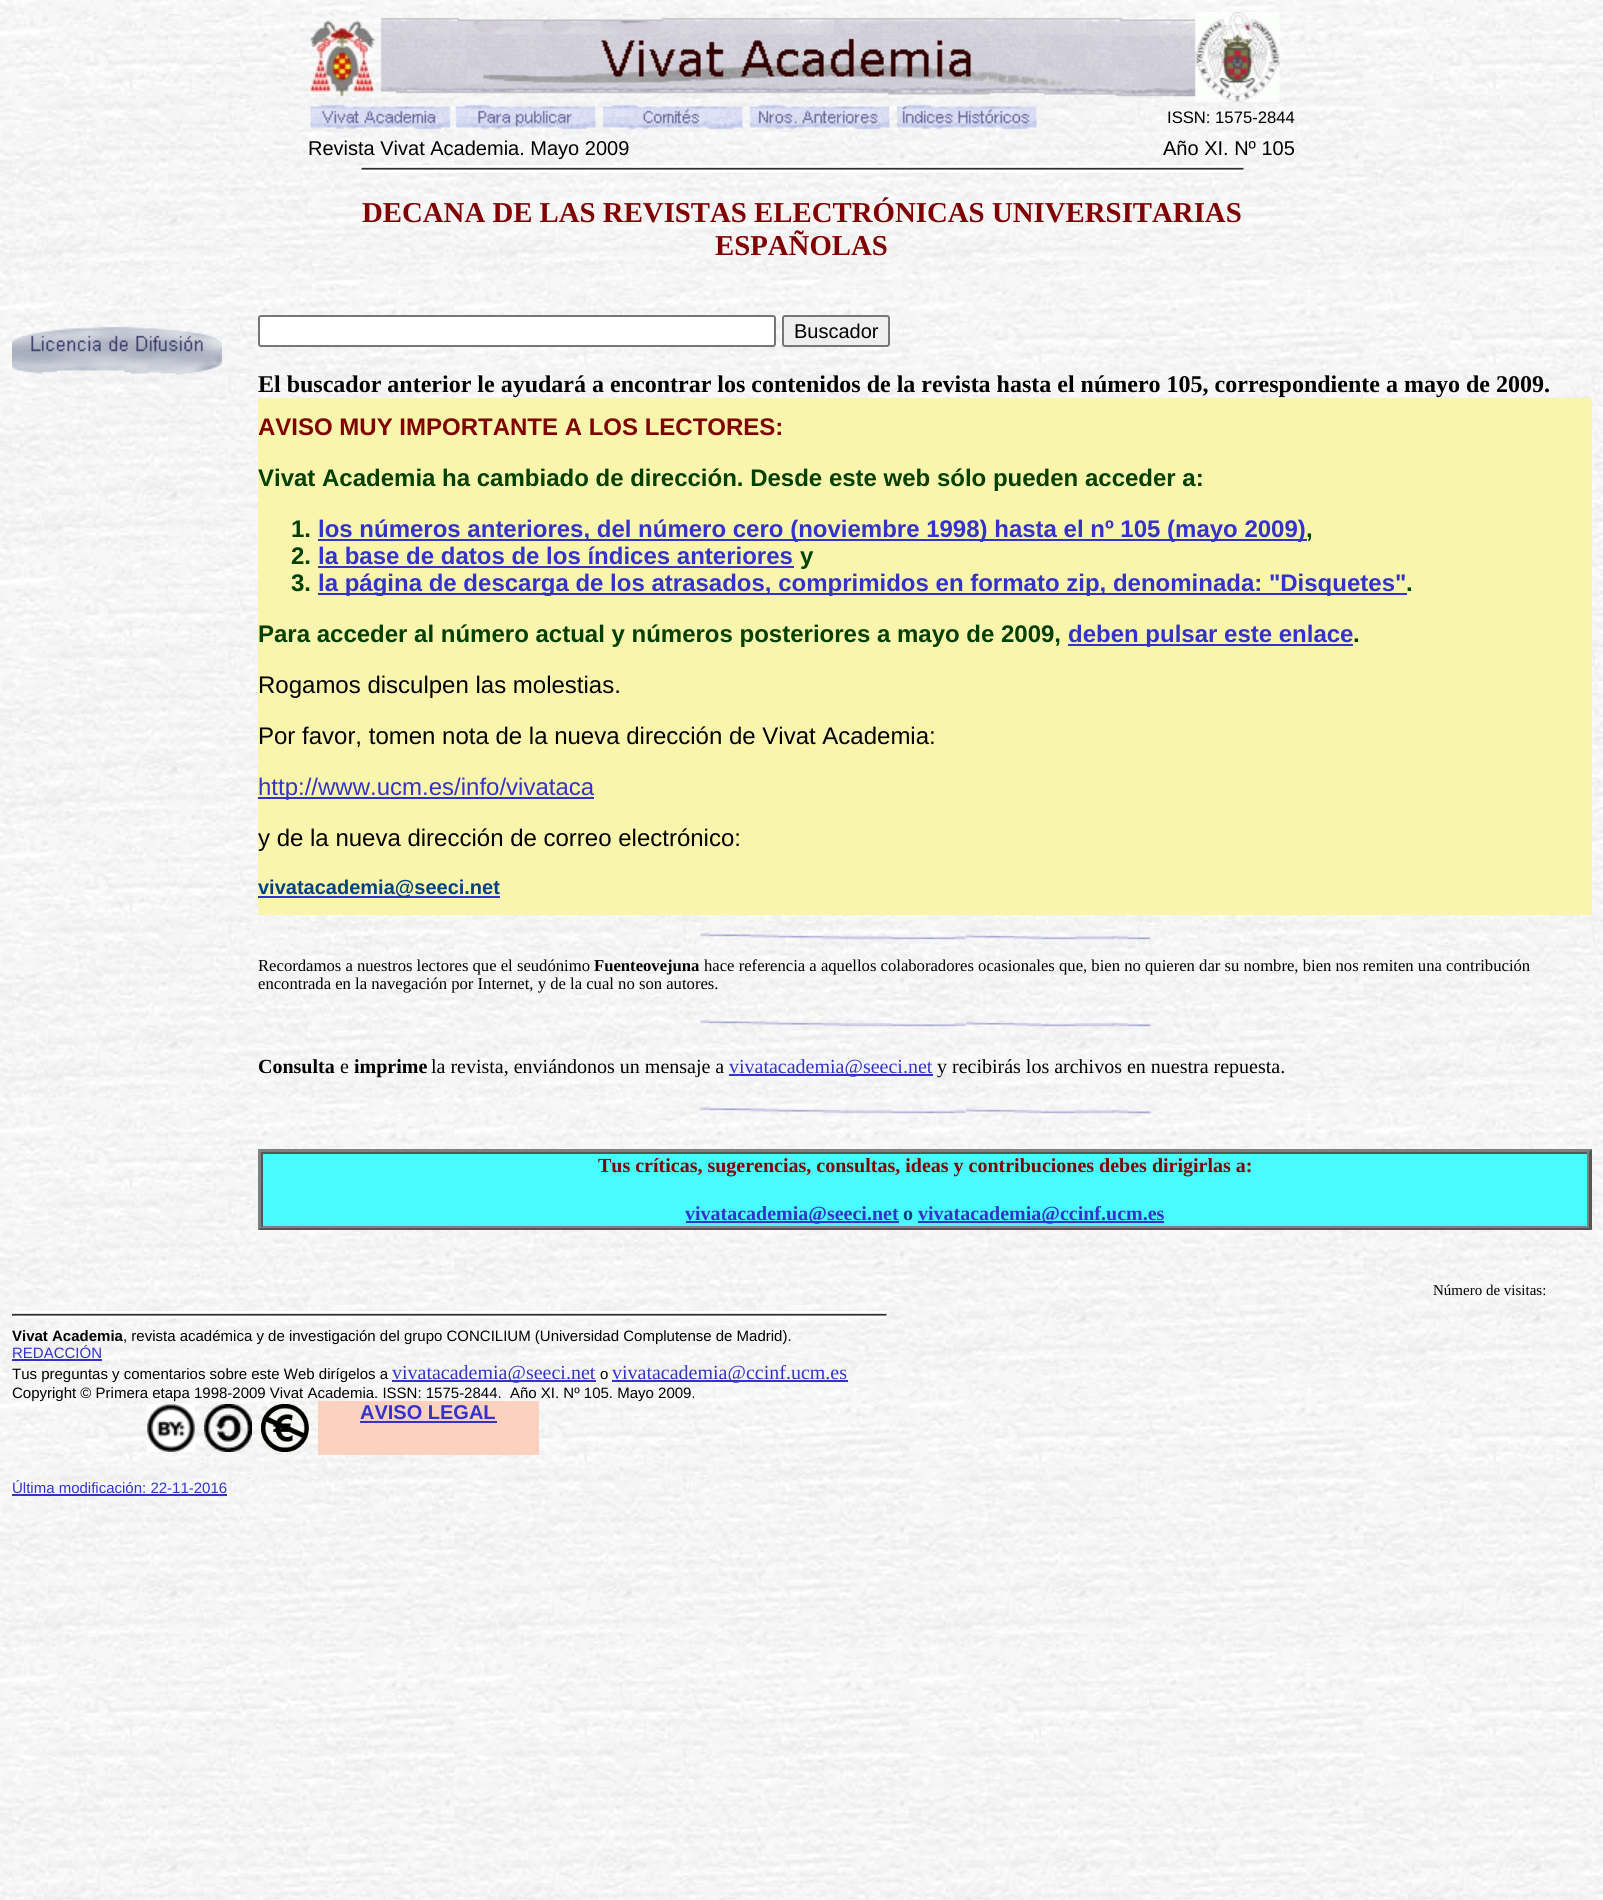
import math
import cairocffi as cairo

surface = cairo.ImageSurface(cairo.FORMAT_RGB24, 1603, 1900)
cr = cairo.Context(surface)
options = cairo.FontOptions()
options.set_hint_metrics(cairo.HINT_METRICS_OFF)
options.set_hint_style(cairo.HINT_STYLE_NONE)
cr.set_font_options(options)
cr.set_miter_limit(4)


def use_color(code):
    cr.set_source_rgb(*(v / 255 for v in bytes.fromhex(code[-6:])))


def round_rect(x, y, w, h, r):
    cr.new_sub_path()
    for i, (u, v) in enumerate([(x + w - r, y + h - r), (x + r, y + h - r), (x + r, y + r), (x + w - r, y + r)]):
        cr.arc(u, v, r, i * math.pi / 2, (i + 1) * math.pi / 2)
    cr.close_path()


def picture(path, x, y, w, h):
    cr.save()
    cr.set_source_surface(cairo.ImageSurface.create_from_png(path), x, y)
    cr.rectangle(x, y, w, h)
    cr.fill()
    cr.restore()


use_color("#ffffff")
cr.paint()
picture("img1.png", 0, 0, 1603, 1900)
picture("img2.png", 309, 20, 67, 78)
picture("img3.png", 380, 17, 816, 80)
picture("img4.png", 1195, 12, 85, 90)
picture("img5.png", 310, 104, 141, 26)
picture("img6.png", 455, 104, 141, 26)
picture("img7.png", 602, 104, 141, 26)
picture("img8.png", 749, 104, 141, 26)
picture("img9.png", 896, 104, 141, 26)
cr.select_font_face("Liberation Sans")
cr.set_font_size(16.65)
use_color("#000000")
cr.move_to(1167, 123)
cr.show_text("ISSN: 1575-2844")
cr.set_font_size(20)
cr.move_to(308, 155)
cr.show_text("Revista Vivat Academia. Mayo 2009")
cr.move_to(1163, 155)
cr.show_text("Año XI. Nº 105")
picture("img10.png", 361, 165, 883, 8)
cr.select_font_face("Liberation Serif", cairo.FONT_SLANT_NORMAL, cairo.FONT_WEIGHT_BOLD)
cr.set_font_size(28.8)
use_color("#800000")
cr.move_to(362, 222)
cr.show_text("DECANA DE LAS REVISTAS ELECTRÓNICAS")
cr.move_to(992, 222)
cr.show_text("UNIVERSITARIAS")
cr.move_to(715, 255)
cr.show_text("ESPAÑOLAS")
picture("img11.png", 12, 326, 210, 49)
use_color("#ffffff")
round_rect(259, 316, 516, 30, 2)
cr.fill_preserve()
use_color("#767676")
cr.stroke()
use_color("#efefef")
round_rect(783, 316, 106, 30, 2)
cr.fill_preserve()
use_color("#767676")
cr.stroke()
cr.select_font_face("Liberation Sans")
cr.set_font_size(20)
use_color("#000000")
cr.move_to(794, 338)
cr.show_text("Buscador")
cr.select_font_face("Liberation Serif", cairo.FONT_SLANT_NORMAL, cairo.FONT_WEIGHT_BOLD)
cr.set_font_size(24)
cr.move_to(258, 392)
cr.show_text("El buscador anterior le ayudará a encontrar los contenidos de la revista hasta el número 105, correspondiente a mayo de 2009.")
use_color("#faf5ad")
cr.rectangle(258, 398, 1334, 517)
cr.fill()
cr.select_font_face("Liberation Sans", cairo.FONT_SLANT_NORMAL, cairo.FONT_WEIGHT_BOLD)
use_color("#800000")
cr.move_to(258, 435)
cr.show_text("AVISO MUY IMPORTANTE A LOS LECTORES:")
use_color("#004000")
cr.move_to(258, 486)
cr.show_text("Vivat Academia ha cambiado de dirección. Desde este web sólo pueden acceder a:")
cr.move_to(291, 537)
cr.show_text("1.")
use_color("#3333cc")
cr.rectangle(318, 539, 989, 2)
cr.fill()
cr.move_to(318, 537)
cr.show_text("los números anteriores, del número cero (noviembre 1998) hasta el nº 105 (mayo 2009)")
use_color("#004000")
cr.move_to(1306, 537)
cr.show_text(",")
cr.move_to(291, 564)
cr.show_text("2.")
use_color("#3333cc")
cr.move_to(318, 564)
cr.show_text("la base de datos de los índices anteriores")
cr.rectangle(318, 566, 476, 2)
cr.fill()
use_color("#004000")
cr.move_to(800, 564)
cr.show_text("y")
cr.move_to(291, 591)
cr.show_text("3.")
use_color("#3333cc")
cr.rectangle(318, 593, 1089, 2)
cr.fill()
cr.move_to(318, 591)
cr.show_text("la página de descarga de los atrasados, comprimidos en formato zip, denominada: \"Disquetes\"")
use_color("#004000")
cr.move_to(1406, 591)
cr.show_text(".")
cr.move_to(258, 642)
cr.show_text("Para acceder al número actual y números posteriores a mayo de 2009,")
use_color("#3333cc")
cr.rectangle(1068, 644, 285, 2)
cr.fill()
cr.move_to(1068, 642)
cr.show_text("deben pulsar este enlace")
use_color("#004000")
cr.move_to(1353, 642)
cr.show_text(".")
cr.select_font_face("Liberation Sans")
use_color("#000000")
cr.move_to(258, 693)
cr.show_text("Rogamos disculpen las molestias.")
cr.move_to(258, 744)
cr.show_text("Por favor, tomen nota de la nueva dirección de Vivat Academia:")
use_color("#3333cc")
cr.rectangle(258, 797, 336, 2)
cr.fill()
cr.move_to(258, 795)
cr.show_text("http://www.ucm.es/info/vivataca")
use_color("#000000")
cr.move_to(258, 846)
cr.show_text("y de la nueva dirección de correo electrónico:")
use_color("#3333cc")
cr.rectangle(258, 896, 242, 2)
cr.fill()
cr.select_font_face("Liberation Sans", cairo.FONT_SLANT_NORMAL, cairo.FONT_WEIGHT_BOLD)
cr.set_font_size(20)
use_color("#004080")
cr.move_to(258, 894)
cr.show_text("vivatacademia@seeci.net")
picture("img12.png", 700, 933, 451, 7)
cr.select_font_face("Liberation Serif")
cr.set_font_size(16.65)
use_color("#000000")
cr.move_to(258, 971)
cr.show_text("Recordamos a nuestros lectores que el seudónimo")
cr.select_font_face("Liberation Serif", cairo.FONT_SLANT_NORMAL, cairo.FONT_WEIGHT_BOLD)
cr.move_to(594, 971)
cr.show_text("Fuenteovejuna")
cr.select_font_face("Liberation Serif")
cr.move_to(704, 971)
cr.show_text("hace referencia a aquellos colaboradores ocasionales que, bien no quieren dar su nombre, bien nos remiten una contribución")
cr.move_to(258, 989)
cr.show_text("encontrada en la navegación por Internet, y de la cual no son autores.")
picture("img13.png", 700, 1019, 451, 8)
cr.select_font_face("Liberation Serif", cairo.FONT_SLANT_NORMAL, cairo.FONT_WEIGHT_BOLD)
cr.set_font_size(20)
cr.move_to(258, 1073)
cr.show_text("Consulta")
cr.select_font_face("Liberation Serif")
cr.move_to(340, 1073)
cr.show_text("e")
cr.select_font_face("Liberation Serif", cairo.FONT_SLANT_NORMAL, cairo.FONT_WEIGHT_BOLD)
cr.move_to(354, 1073)
cr.show_text("imprime")
cr.select_font_face("Liberation Serif")
cr.move_to(431, 1073)
cr.show_text("la revista, enviándonos un mensaje a")
use_color("#3333cc")
cr.rectangle(729, 1074, 204, 2)
cr.fill()
cr.move_to(729, 1073)
cr.show_text("vivatacademia@seeci.net")
use_color("#000000")
cr.move_to(937, 1073)
cr.show_text("y recibirás los archivos en nuestra repuesta.")
picture("img14.png", 700, 1106, 451, 9)
use_color("#48fbff")
cr.rectangle(258, 1149, 1334, 81)
cr.fill()
use_color("#808080")
cr.new_path()
cr.move_to(258, 1149)
cr.line_to(1592, 1149)
cr.line_to(1588, 1152)
cr.line_to(261, 1152)
cr.close_path()
cr.fill()
use_color("#555555")
cr.new_path()
cr.move_to(1592, 1149)
cr.line_to(1592, 1230)
cr.line_to(1588, 1227)
cr.line_to(1588, 1152)
cr.close_path()
cr.fill()
cr.new_path()
cr.move_to(1592, 1230)
cr.line_to(258, 1230)
cr.line_to(261, 1227)
cr.line_to(1588, 1227)
cr.close_path()
cr.fill()
use_color("#808080")
cr.new_path()
cr.move_to(258, 1230)
cr.line_to(258, 1149)
cr.line_to(261, 1152)
cr.line_to(261, 1227)
cr.close_path()
cr.fill()
use_color("#555555")
cr.rectangle(261, 1152, 1328, 2)
cr.fill()
use_color("#808080")
cr.rectangle(1587, 1152, 2, 75)
cr.fill()
cr.rectangle(261, 1226, 1328, 2)
cr.fill()
use_color("#555555")
cr.rectangle(261, 1152, 2, 75)
cr.fill()
cr.select_font_face("Liberation Serif", cairo.FONT_SLANT_NORMAL, cairo.FONT_WEIGHT_BOLD)
use_color("#800000")
cr.move_to(598, 1172)
cr.show_text("Tus críticas, sugerencias, consultas, ideas y contribuciones debes dirigirlas a:")
use_color("#3333cc")
cr.rectangle(686, 1221, 213, 2)
cr.fill()
cr.move_to(685, 1220)
cr.show_text("vivatacademia@seeci.net")
use_color("#004080")
cr.move_to(903, 1220)
cr.show_text("o")
use_color("#3333cc")
cr.rectangle(918, 1221, 246, 2)
cr.fill()
cr.move_to(918, 1220)
cr.show_text("vivatacademia@ccinf.ucm.es")
cr.select_font_face("Liberation Serif")
cr.set_font_size(15)
use_color("#000000")
cr.move_to(1433, 1295)
cr.show_text("Número de visitas:")
picture("img15.png", 12, 1311, 875, 8)
cr.select_font_face("Liberation Sans", cairo.FONT_SLANT_NORMAL, cairo.FONT_WEIGHT_BOLD)
cr.move_to(12, 1341)
cr.show_text("Vivat Academia")
cr.select_font_face("Liberation Sans")
cr.move_to(123, 1341)
cr.show_text(", revista académica y de investigación del grupo CONCILIUM (Universidad Complutense de Madrid).")
use_color("#3333cc")
cr.move_to(12, 1358)
cr.show_text("REDACCIÓN")
cr.rectangle(12, 1359, 90, 2)
cr.fill()
use_color("#000000")
cr.move_to(12, 1379)
cr.show_text("Tus preguntas y comentarios sobre este Web dirígelos a")
use_color("#3333cc")
cr.rectangle(392, 1380, 204, 2)
cr.fill()
cr.select_font_face("Liberation Serif")
cr.set_font_size(20)
cr.move_to(392, 1379)
cr.show_text("vivatacademia@seeci.net")
cr.select_font_face("Liberation Sans")
cr.set_font_size(15)
use_color("#000000")
cr.move_to(600, 1379)
cr.show_text("o")
use_color("#3333cc")
cr.rectangle(612, 1380, 236, 2)
cr.fill()
cr.select_font_face("Liberation Serif")
cr.set_font_size(20)
cr.move_to(612, 1379)
cr.show_text("vivatacademia@ccinf.ucm.es")
use_color("#fcd2be")
cr.rectangle(318, 1401, 221, 54)
cr.fill()
cr.select_font_face("Liberation Sans")
cr.set_font_size(15)
use_color("#000000")
cr.move_to(12, 1398)
cr.show_text("Copyright © Primera etapa 1998-2009 Vivat Academia. ISSN: 1575-2844.  Año XI. Nº 105. Mayo 2009.")
picture("img16.png", 147, 1404, 48, 48)
picture("img17.png", 204, 1404, 48, 48)
picture("img18.png", 261, 1404, 48, 48)
cr.select_font_face("Liberation Sans", cairo.FONT_SLANT_NORMAL, cairo.FONT_WEIGHT_BOLD)
cr.set_font_size(20)
use_color("#3333cc")
cr.move_to(360, 1419)
cr.show_text("AVISO LEGAL")
cr.rectangle(360, 1421, 137, 2)
cr.fill()
cr.select_font_face("Liberation Sans")
cr.set_font_size(15)
cr.move_to(12, 1493)
cr.show_text("Última modificación: 22-11-2016")
cr.rectangle(12, 1494, 215, 2)
cr.fill()
surface.write_to_png("result.png")
